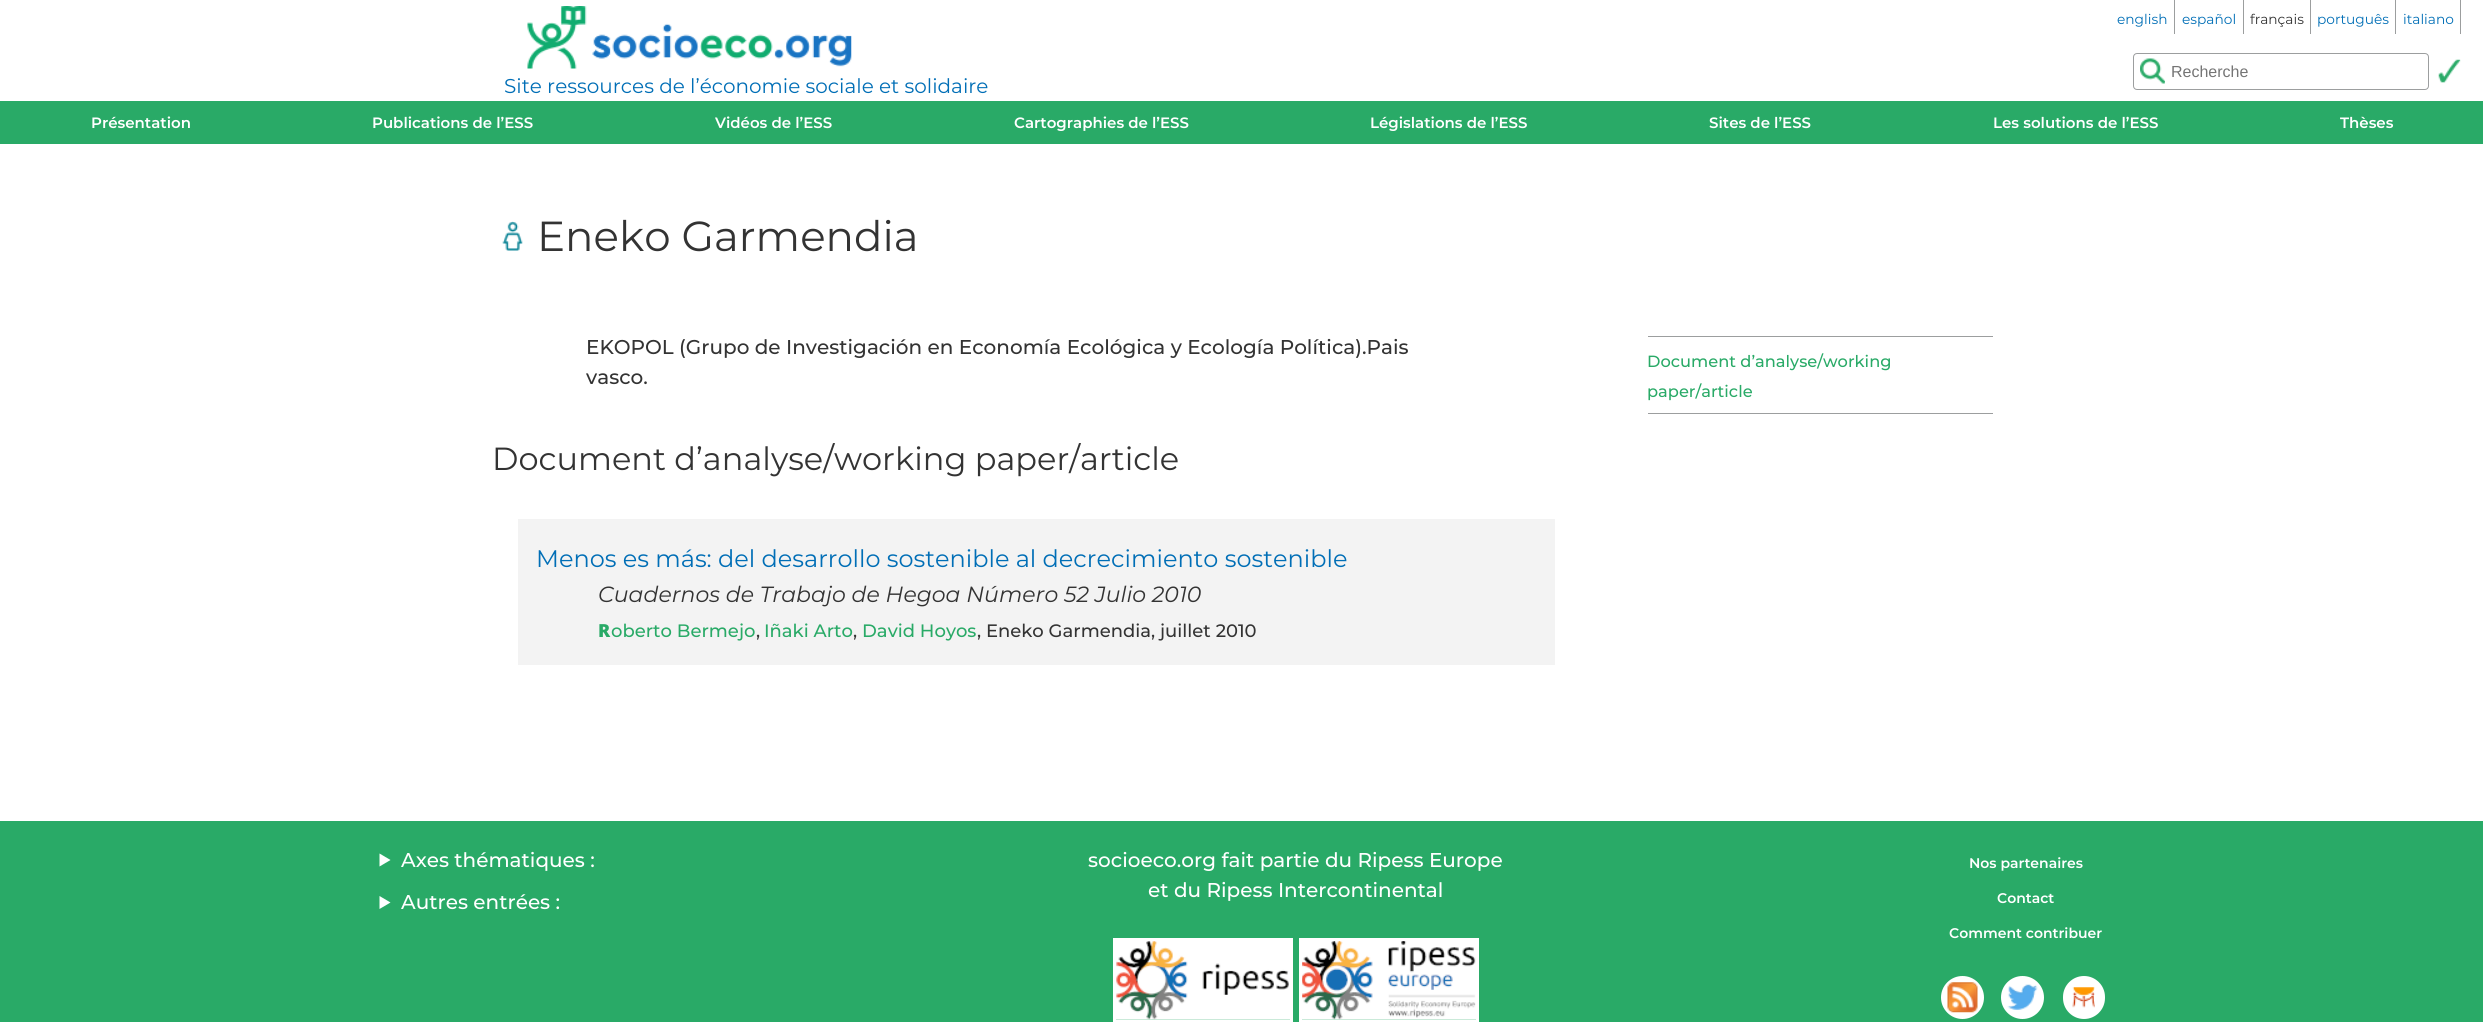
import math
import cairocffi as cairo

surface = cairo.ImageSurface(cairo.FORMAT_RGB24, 2483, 1022)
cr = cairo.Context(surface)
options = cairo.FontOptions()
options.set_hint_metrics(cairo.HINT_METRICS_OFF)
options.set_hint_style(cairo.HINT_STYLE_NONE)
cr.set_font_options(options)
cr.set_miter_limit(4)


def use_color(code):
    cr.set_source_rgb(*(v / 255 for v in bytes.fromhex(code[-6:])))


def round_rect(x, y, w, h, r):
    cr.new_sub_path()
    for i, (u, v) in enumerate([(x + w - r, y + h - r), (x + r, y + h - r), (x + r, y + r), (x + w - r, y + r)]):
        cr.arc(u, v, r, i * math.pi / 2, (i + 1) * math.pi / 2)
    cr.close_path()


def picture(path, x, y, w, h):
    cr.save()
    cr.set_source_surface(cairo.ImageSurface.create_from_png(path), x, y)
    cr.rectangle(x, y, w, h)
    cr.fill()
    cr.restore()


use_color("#ffffff")
cr.paint()
use_color("#9c9e9f")
cr.rectangle(2174, 0, 1, 34)
cr.fill()
cr.select_font_face("Montserrat")
cr.set_font_size(13.75)
use_color("#006eb6")
cr.move_to(2117, 24)
cr.show_text("english")
use_color("#9c9e9f")
cr.rectangle(2243, 0, 1, 34)
cr.fill()
use_color("#006eb6")
cr.move_to(2182, 24)
cr.show_text("español")
use_color("#9c9e9f")
cr.rectangle(2310, 0, 1, 34)
cr.fill()
use_color("#333333")
cr.move_to(2250, 24)
cr.show_text("français")
use_color("#9c9e9f")
cr.rectangle(2395, 0, 1, 34)
cr.fill()
use_color("#006eb6")
cr.move_to(2317, 24)
cr.show_text("português")
use_color("#9c9e9f")
cr.rectangle(2460, 0, 1, 34)
cr.fill()
use_color("#006eb6")
cr.move_to(2403, 24)
cr.show_text("italiano")
use_color("#29aa67")
cr.rectangle(0, 101, 2483, 43)
cr.fill()
picture("img1.png", 2140, 58, 25, 26)
round_rect(2133.5, 53.5, 295, 36, 3.5)
use_color("#9c9e9f")
cr.set_line_width(1)
cr.stroke()
cr.select_font_face("Liberation Sans")
cr.set_font_size(16)
use_color("#757575")
cr.move_to(2171, 77)
cr.show_text("Recherche")
picture("img2.png", 2438, 59, 23, 24)
cr.select_font_face("Montserrat SemiBold")
cr.set_font_size(15)
use_color("#ffffff")
cr.move_to(91, 128)
cr.show_text("Présentation")
cr.move_to(372, 128)
cr.show_text("Publications de l’ESS")
cr.move_to(715, 128)
cr.show_text("Vidéos de l’ESS")
cr.move_to(1014, 128)
cr.show_text("Cartographies de l’ESS")
cr.move_to(1370, 128)
cr.show_text("Législations de l’ESS")
cr.move_to(1709, 128)
cr.show_text("Sites de l’ESS")
cr.move_to(1993, 128)
cr.show_text("Les solutions de l’ESS")
cr.move_to(2340, 128)
cr.show_text("Thèses")
picture("img3.png", 527, 6, 325, 63)
cr.select_font_face("Montserrat")
cr.set_font_size(20)
use_color("#006eb6")
cr.move_to(504, 93)
cr.show_text("Site ressources de l’économie sociale et solidaire")
picture("img4.png", 502, 221, 21, 30)
cr.set_font_size(42)
use_color("#333333")
cr.move_to(537, 251)
cr.show_text("Eneko Garmendia")
cr.select_font_face("Montserrat Medium")
cr.set_font_size(20)
cr.move_to(586, 354)
cr.show_text("EKOPOL (Grupo de Investigación en Economía Ecológica y Ecología Política).Pais")
cr.move_to(586, 384)
cr.show_text("vasco.")
use_color("#9c9e9f")
cr.rectangle(1648, 336, 345, 1)
cr.fill()
cr.rectangle(1648, 413, 345, 1)
cr.fill()
cr.set_font_size(16.25)
use_color("#29aa67")
cr.move_to(1647, 367)
cr.show_text("Document d’analyse/working")
cr.move_to(1647, 397)
cr.show_text("paper/article")
cr.select_font_face("Montserrat")
cr.set_font_size(32)
use_color("#333333")
cr.move_to(492, 470)
cr.show_text("Document d’analyse/working paper/article")
use_color("#f3f3f3")
cr.rectangle(518, 519, 1037, 146)
cr.fill()
cr.set_font_size(24)
use_color("#006eb6")
cr.move_to(536, 567)
cr.show_text("Menos es más: del desarrollo sostenible al decrecimiento sostenible")
cr.select_font_face("Montserrat", cairo.FONT_SLANT_ITALIC)
cr.set_font_size(22)
use_color("#333333")
cr.move_to(598, 602)
cr.show_text("Cuadernos de Trabajo de Hegoa Número 52 Julio 2010")
cr.select_font_face("Noto Sans Black")
cr.set_font_size(18)
use_color("#29aa67")
cr.move_to(598, 637)
cr.show_text("R")
cr.select_font_face("Montserrat Medium")
cr.move_to(611, 637)
cr.show_text("oberto Bermejo")
use_color("#333333")
cr.move_to(756, 637)
cr.show_text(",")
use_color("#29aa67")
cr.move_to(764, 637)
cr.show_text("Iñaki Arto")
use_color("#333333")
cr.move_to(853, 637)
cr.show_text(",")
use_color("#29aa67")
cr.move_to(862, 637)
cr.show_text("David Hoyos")
use_color("#333333")
cr.move_to(977, 637)
cr.show_text(", Eneko Garmendia, juillet 2010")
use_color("#29aa67")
cr.rectangle(0, 821, 2483, 201)
cr.fill()
use_color("#ffffff")
cr.new_path()
cr.move_to(379.5, 853.5)
cr.line_to(390.5, 860)
cr.line_to(379.5, 866.5)
cr.close_path()
cr.fill()
cr.set_font_size(20)
cr.move_to(401, 867)
cr.show_text("Axes thématiques :")
cr.new_path()
cr.move_to(379.5, 896)
cr.line_to(390.5, 902.5)
cr.line_to(379.5, 909)
cr.close_path()
cr.fill()
cr.move_to(401, 909)
cr.show_text("Autres entrées :")
cr.move_to(1088, 867)
cr.show_text("socioeco.org fait partie du Ripess Europe")
cr.move_to(1148, 897)
cr.show_text("et du Ripess Intercontinental")
picture("img5.png", 1116, 941, 174, 79)
cr.rectangle(1114.5, 939.5, 177, 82)
cr.set_line_width(3)
cr.stroke()
picture("img6.png", 1302, 941, 174, 79)
cr.rectangle(1300.5, 939.5, 177, 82)
cr.stroke()
cr.select_font_face("Montserrat SemiBold")
cr.set_font_size(14)
cr.move_to(1969, 868)
cr.show_text("Nos partenaires")
cr.move_to(1997, 903)
cr.show_text("Contact")
cr.move_to(1949, 938)
cr.show_text("Comment contribuer")
cr.new_path()
cr.arc(1962.5, 997.5, 21.5, 0, 2 * math.pi)
cr.fill()
picture("img7.png", 1947, 982, 31, 31)
cr.arc(2022.5, 997.5, 21.5, 0, 2 * math.pi)
cr.fill()
picture("img8.png", 2007, 984, 31, 26)
round_rect(2063, 976, 42, 43, 21)
cr.fill()
picture("img9.png", 2072, 987, 23, 21)
surface.write_to_png("result.png")
